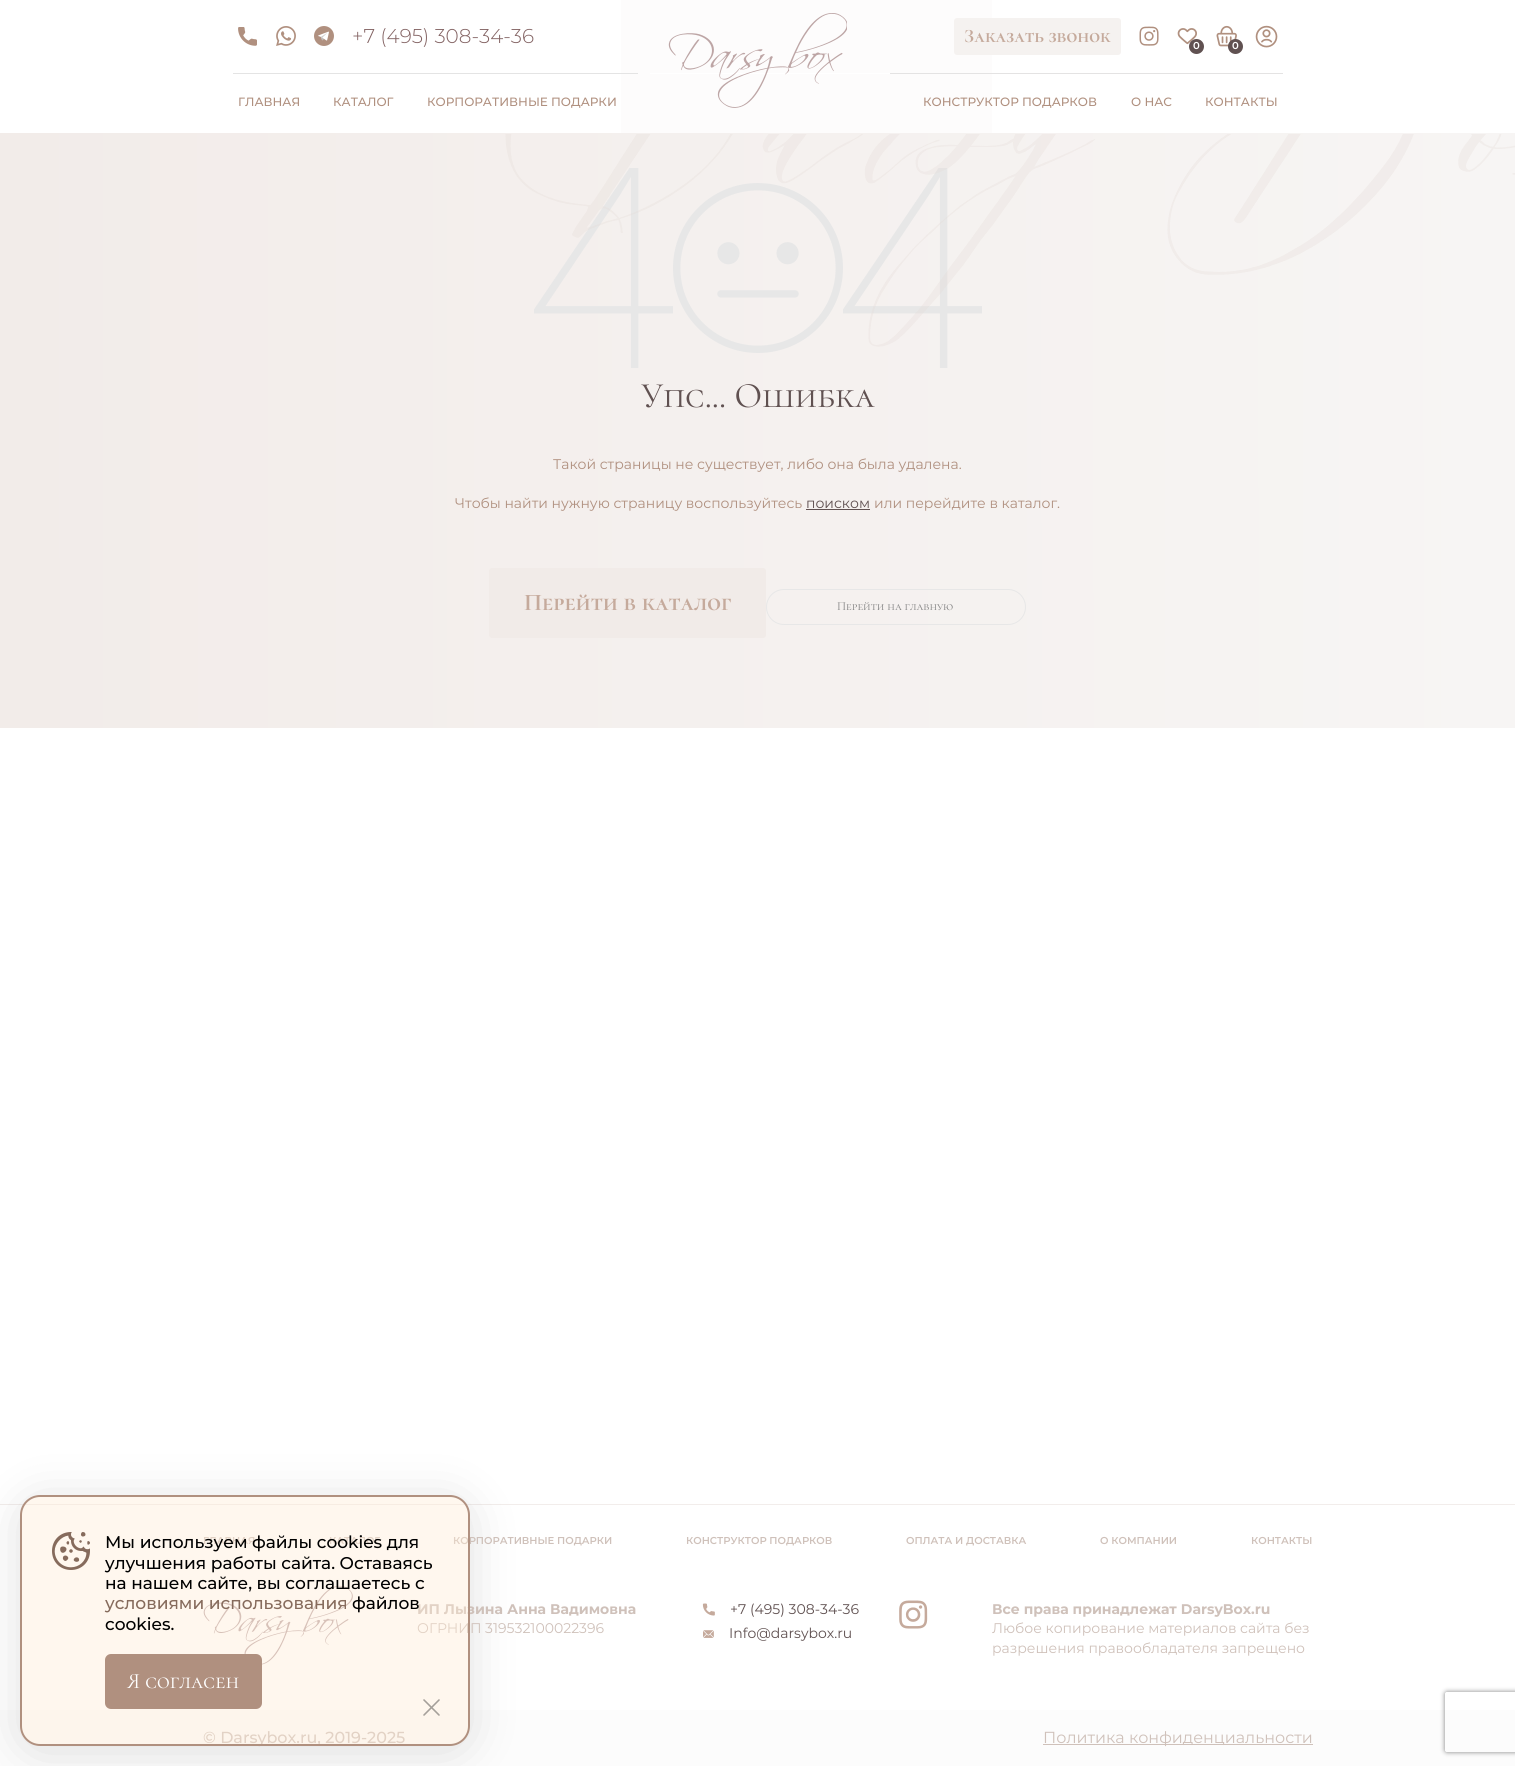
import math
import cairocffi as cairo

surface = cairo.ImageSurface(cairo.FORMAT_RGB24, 1515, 1766)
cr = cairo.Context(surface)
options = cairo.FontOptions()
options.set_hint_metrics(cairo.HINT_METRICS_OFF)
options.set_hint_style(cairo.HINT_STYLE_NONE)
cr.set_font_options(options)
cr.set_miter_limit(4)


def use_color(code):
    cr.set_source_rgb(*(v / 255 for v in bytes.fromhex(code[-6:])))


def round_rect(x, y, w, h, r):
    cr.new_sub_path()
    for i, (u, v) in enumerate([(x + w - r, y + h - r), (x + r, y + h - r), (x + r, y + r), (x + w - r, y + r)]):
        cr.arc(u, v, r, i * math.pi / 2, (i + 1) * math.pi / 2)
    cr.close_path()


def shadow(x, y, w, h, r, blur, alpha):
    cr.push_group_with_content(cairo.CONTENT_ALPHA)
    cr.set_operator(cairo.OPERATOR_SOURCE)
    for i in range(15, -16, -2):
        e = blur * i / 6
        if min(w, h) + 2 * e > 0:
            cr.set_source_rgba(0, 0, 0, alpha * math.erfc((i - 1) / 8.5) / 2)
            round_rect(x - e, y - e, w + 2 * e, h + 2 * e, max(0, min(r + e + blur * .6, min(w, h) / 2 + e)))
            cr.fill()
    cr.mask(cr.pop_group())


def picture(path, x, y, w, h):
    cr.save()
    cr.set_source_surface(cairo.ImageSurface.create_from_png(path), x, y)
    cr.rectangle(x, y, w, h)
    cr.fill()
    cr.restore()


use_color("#ffffff")
cr.paint()
gradient = cairo.LinearGradient(0, 67, 1515, 66)
gradient.add_color_stop_rgba(0.02, 0.996, 0.996, 0.996, 1)
gradient.add_color_stop_rgba(0.54, 0.992, 0.988, 0.988, 1)
gradient.add_color_stop_rgba(1, 0.996, 0.996, 0.996, 1)
cr.set_source(gradient)
cr.rectangle(621, 0, 371, 133)
cr.fill()
picture("img1.png", 238, 27, 19, 19)
picture("img2.png", 276, 26, 20, 20)
picture("img3.png", 314, 26, 20, 20)
cr.select_font_face("Montserrat Light")
cr.set_font_size(20)
use_color("#836363")
cr.move_to(352, 43)
cr.show_text("+7 (495) 308-34-36")
use_color("#ffffff")
cr.rectangle(650, 73, 240, 1)
cr.fill()
picture("img4.png", 668, 13, 179, 95)
use_color("#f5f2f0")
round_rect(954, 18, 167, 37, 3)
cr.fill()
cr.select_font_face("Cormorant SC", cairo.FONT_SLANT_NORMAL, cairo.FONT_WEIGHT_BOLD)
cr.set_font_size(19)
use_color("#c5aa9c")
cr.move_to(964, 42)
cr.show_text("Заказать звонок")
picture("img5.png", 1139, 26, 20, 20)
picture("img6.png", 1255, 25, 23, 23)
picture("img7.png", 1177, 28, 20, 17)
use_color("#605151")
cr.arc(1196.5, 46.5, 7.5, 0, 2 * math.pi)
cr.fill()
cr.select_font_face("Montserrat SemiBold")
cr.set_font_size(10)
use_color("#ffffff")
cr.move_to(1193, 49)
cr.show_text("0")
picture("img8.png", 1216, 25, 21, 22)
use_color("#605151")
cr.arc(1235.5, 46.5, 7.5, 0, 2 * math.pi)
cr.fill()
use_color("#ffffff")
cr.move_to(1232, 49)
cr.show_text("0")
use_color("#e4e4e4")
cr.rectangle(233, 73, 405, 1)
cr.fill()
use_color("#e4e3e3")
cr.rectangle(890, 73, 393, 1)
cr.fill()
cr.select_font_face("Montserrat Medium")
cr.set_font_size(12)
use_color("#b0907f")
cr.move_to(238, 106)
cr.show_text("ГЛАВНАЯ")
cr.move_to(333, 106)
cr.show_text("КАТАЛОГ")
cr.move_to(427, 106)
cr.show_text("КОРПОРАТИВНЫЕ ПОДАРКИ")
cr.move_to(923, 106)
cr.show_text("КОНСТРУКТОР ПОДАРКОВ")
cr.move_to(1131, 106)
cr.show_text("О НАС")
cr.move_to(1205, 106)
cr.show_text("КОНТАКТЫ")
gradient = cairo.LinearGradient(0, 431, 1515, 430)
gradient.add_color_stop_rgba(0, 0.949, 0.925, 0.914, 1)
gradient.add_color_stop_rgba(1, 0.969, 0.961, 0.957, 1)
cr.set_source(gradient)
cr.rectangle(0, 133, 1515, 595)
cr.fill()
picture("img10.png", 534, 168, 448, 200)
picture("img9.png", 505, 134, 1010, 213)
cr.select_font_face("Cormorant SC")
cr.set_font_size(36)
use_color("#605151")
cr.move_to(641, 407)
cr.show_text("Упс... Ошибка")
cr.select_font_face("Montserrat")
cr.set_font_size(14)
use_color("#b0907f")
cr.move_to(553, 469)
cr.show_text("Такой страницы не существует, либо она была удалена.")
cr.move_to(455, 508)
cr.show_text("Чтобы найти нужную страницу воспользуйтесь")
use_color("#605151")
cr.move_to(806, 508)
cr.show_text("поиском")
cr.rectangle(806, 509, 64, 1)
cr.fill()
use_color("#b0907f")
cr.move_to(874, 508)
cr.show_text("или перейдите в каталог.")
use_color("#f1ebe8")
round_rect(489, 568, 277, 70, 3)
cr.fill()
cr.select_font_face("Cormorant SC", cairo.FONT_SLANT_NORMAL, cairo.FONT_WEIGHT_BOLD)
cr.set_font_size(24)
use_color("#c5aa9c")
cr.move_to(524, 610)
cr.show_text("Перейти в каталог")
round_rect(766.5, 589.5, 259, 35, 17.5)
use_color("#e7e7e7")
cr.set_line_width(1)
cr.stroke()
cr.select_font_face("Cormorant SC")
cr.set_font_size(12.25)
use_color("#828282")
cr.move_to(837, 610)
cr.show_text("Перейти на главную")
use_color("#f2edeb")
cr.rectangle(0, 1504, 1515, 1)
cr.fill()
picture("img12.png", 203, 1585, 150, 80)
use_color("#fcfcfc")
cr.rectangle(0, 1710, 1515, 56)
cr.fill()
cr.save()
cr.set_fill_rule(cairo.FILL_RULE_EVEN_ODD)
cr.new_path()
cr.move_to(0, 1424)
cr.line_to(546, 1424)
cr.line_to(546, 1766)
cr.line_to(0, 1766)
cr.close_path()
cr.move_to(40, 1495)
cr.line_to(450, 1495)
cr.curve_to(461, 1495, 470, 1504, 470, 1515)
cr.line_to(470, 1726)
cr.curve_to(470, 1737, 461, 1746, 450, 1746)
cr.line_to(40, 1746)
cr.curve_to(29, 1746, 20, 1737, 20, 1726)
cr.line_to(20, 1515)
cr.curve_to(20, 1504, 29, 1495, 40, 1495)
cr.close_path()
cr.clip()
use_color("#000000")
shadow(20, 1500, 450, 251, 20, 25, 0.12)
cr.restore()
cr.select_font_face("Montserrat SemiBold")
cr.set_font_size(10)
use_color("#cfc1ba")
cr.move_to(203, 1544)
cr.show_text("ГЛАВНАЯ")
cr.move_to(329, 1544)
cr.show_text("КАТАЛОГ")
cr.move_to(453, 1544)
cr.show_text("КОРПОРАТИВНЫЕ ПОДАРКИ")
cr.select_font_face("Montserrat", cairo.FONT_SLANT_NORMAL, cairo.FONT_WEIGHT_BOLD)
cr.set_font_size(14)
cr.move_to(417, 1614)
cr.show_text("ИП Лызина Анна Вадимовна")
cr.select_font_face("Montserrat")
cr.move_to(417, 1633)
cr.show_text("ОГРНИП 319532100022396")
cr.select_font_face("Montserrat Medium")
cr.set_font_size(16)
cr.move_to(203, 1743)
cr.show_text("© Darsybox.ru, 2019-2025")
cr.set_source_rgba(1, 0.922, 0.835, 0.4)
round_rect(21, 1496, 448, 249, 19)
cr.fill_preserve()
use_color("#b0907f")
cr.set_line_width(2)
cr.stroke()
picture("img11.png", 52, 1532, 38, 38)
cr.set_font_size(17)
use_color("#000000")
cr.move_to(105, 1548)
cr.show_text("Мы используем файлы cookies для")
cr.move_to(105, 1569)
cr.show_text("улучшения работы сайта. Оставаясь")
cr.move_to(105, 1589)
cr.show_text("на нашем сайте, вы соглашаетесь с")
use_color("#866b5c")
cr.move_to(105, 1609)
cr.show_text("условиями использования")
use_color("#000000")
cr.move_to(352, 1609)
cr.show_text("файлов")
cr.move_to(105, 1630)
cr.show_text("cookies.")
use_color("#b0907f")
round_rect(105, 1654, 157, 55, 6)
cr.fill()
cr.select_font_face("Cormorant SC")
cr.set_font_size(22)
use_color("#ffffff")
cr.move_to(127, 1688)
cr.show_text("Я согласен")
cr.new_path()
cr.move_to(439, 1700)
cr.line_to(424, 1715)
cr.move_to(424, 1700)
cr.line_to(439, 1715)
use_color("#a5a09a")
cr.set_line_width(1.6)
cr.set_line_cap(cairo.LINE_CAP_ROUND)
cr.set_line_join(cairo.LINE_JOIN_ROUND)
cr.stroke()
cr.select_font_face("Montserrat SemiBold")
cr.set_font_size(10)
use_color("#cfc1ba")
cr.move_to(686, 1544)
cr.show_text("КОНСТРУКТОР ПОДАРКОВ")
cr.move_to(906, 1544)
cr.show_text("ОПЛАТА И ДОСТАВКА")
cr.move_to(1100, 1544)
cr.show_text("О КОМПАНИИ")
cr.move_to(1251, 1544)
cr.show_text("КОНТАКТЫ")
picture("img13.png", 702, 1603, 13, 13)
cr.select_font_face("Montserrat")
cr.set_font_size(14)
use_color("#605151")
cr.move_to(730, 1614)
cr.show_text("+7 (495) 308-34-36")
picture("img14.png", 703, 1630, 11, 8)
cr.move_to(729, 1638)
cr.show_text("Info@darsybox.ru")
picture("img15.png", 899, 1600, 29, 29)
cr.select_font_face("Montserrat", cairo.FONT_SLANT_NORMAL, cairo.FONT_WEIGHT_BOLD)
use_color("#cfc1ba")
cr.move_to(992, 1614)
cr.show_text("Все права принадлежат DarsyBox.ru")
cr.select_font_face("Montserrat")
cr.move_to(992, 1633)
cr.show_text("Любое копирование материалов сайта без")
cr.move_to(992, 1653)
cr.show_text("разрешения правообладателя запрещено")
cr.rectangle(1043, 1744, 270, 1)
cr.fill()
cr.set_font_size(16)
cr.move_to(1043, 1743)
cr.show_text("Политика конфиденциальности")
cr.save()
cr.set_fill_rule(cairo.FILL_RULE_EVEN_ODD)
cr.new_path()
cr.move_to(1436, 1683)
cr.line_to(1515, 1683)
cr.line_to(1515, 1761)
cr.line_to(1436, 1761)
cr.close_path()
cr.move_to(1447, 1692)
cr.line_to(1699, 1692)
cr.curve_to(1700, 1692, 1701, 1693, 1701, 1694)
cr.line_to(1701, 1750)
cr.curve_to(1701, 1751, 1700, 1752, 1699, 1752)
cr.line_to(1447, 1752)
cr.curve_to(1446, 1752, 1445, 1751, 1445, 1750)
cr.line_to(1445, 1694)
cr.curve_to(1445, 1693, 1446, 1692, 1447, 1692)
cr.close_path()
cr.clip()
use_color("#808080")
shadow(1445, 1692, 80, 60, 2, 2.5, 1)
cr.restore()
surface.write_to_png("result.png")
